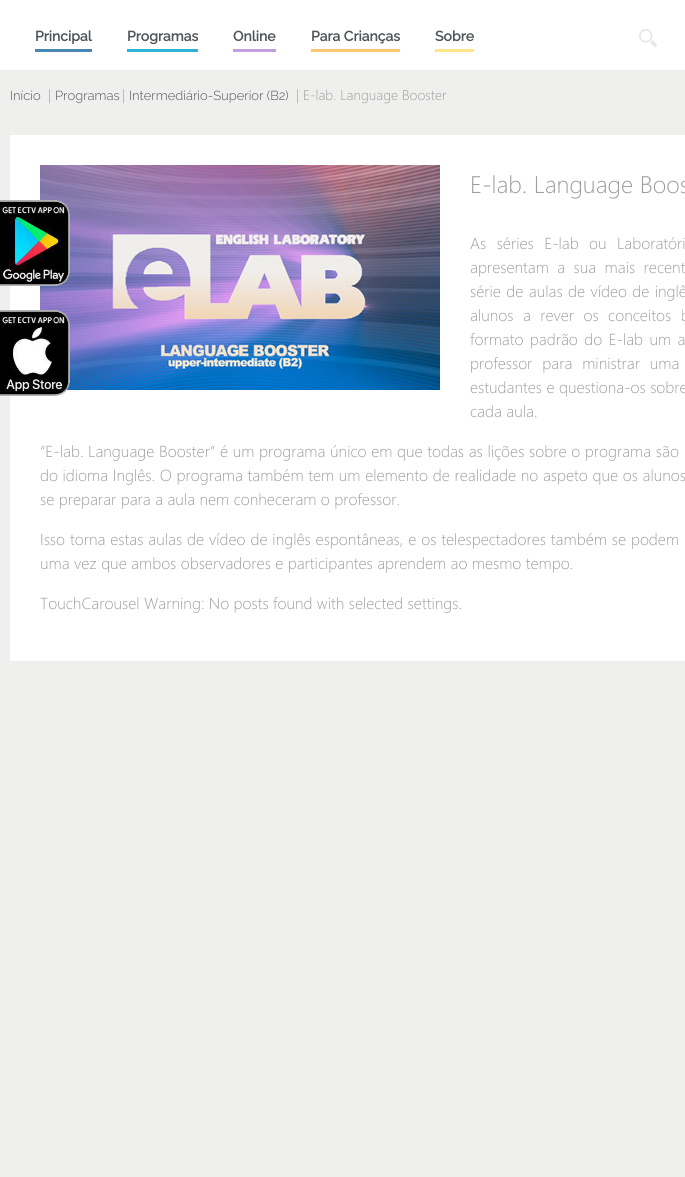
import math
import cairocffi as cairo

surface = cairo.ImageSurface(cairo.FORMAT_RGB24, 685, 1177)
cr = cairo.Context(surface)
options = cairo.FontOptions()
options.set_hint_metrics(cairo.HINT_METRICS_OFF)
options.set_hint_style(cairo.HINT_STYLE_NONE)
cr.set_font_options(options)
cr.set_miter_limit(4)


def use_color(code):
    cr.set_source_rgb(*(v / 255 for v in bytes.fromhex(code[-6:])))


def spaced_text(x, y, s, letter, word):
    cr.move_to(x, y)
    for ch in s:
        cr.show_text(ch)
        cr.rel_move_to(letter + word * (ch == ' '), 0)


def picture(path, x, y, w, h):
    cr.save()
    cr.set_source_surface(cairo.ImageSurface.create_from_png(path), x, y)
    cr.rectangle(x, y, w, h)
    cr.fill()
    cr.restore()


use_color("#efefee")
cr.paint()
use_color("#ffffff")
cr.rectangle(0, 0, 685, 70)
cr.fill()
cr.select_font_face("Raleway", cairo.FONT_SLANT_NORMAL, cairo.FONT_WEIGHT_BOLD)
cr.set_font_size(14)
use_color("#4f5559")
cr.move_to(35, 41)
cr.show_text("Principal")
use_color("#4887b3")
cr.rectangle(35, 49, 57, 3)
cr.fill()
use_color("#4f5559")
cr.move_to(127, 41)
cr.show_text("Programas")
use_color("#2fb3d4")
cr.rectangle(127, 49, 71, 3)
cr.fill()
use_color("#4f5559")
cr.move_to(233, 41)
cr.show_text("Online")
use_color("#bf9fdc")
cr.rectangle(233, 49, 43, 3)
cr.fill()
use_color("#4f5559")
cr.move_to(311, 41)
cr.show_text("Para Crianças")
use_color("#fcc670")
cr.rectangle(311, 49, 89, 3)
cr.fill()
use_color("#4f5559")
cr.move_to(435, 41)
cr.show_text("Sobre")
use_color("#ffe488")
cr.rectangle(435, 49, 39, 3)
cr.fill()
picture("img1.png", 639, 29, 18, 18)
cr.select_font_face("Raleway Thin")
cr.set_font_size(13)
use_color("#4f5559")
cr.move_to(10, 100)
cr.show_text("Início")
cr.select_font_face("Segoe UI Light")
cr.set_font_size(14)
use_color("#9d9d9d")
cr.move_to(48, 100)
cr.show_text("|")
cr.select_font_face("Raleway Thin")
cr.set_font_size(13)
use_color("#4f5559")
cr.move_to(55, 100)
cr.show_text("Programas")
cr.select_font_face("Segoe UI Light")
cr.set_font_size(14)
use_color("#9d9d9d")
cr.move_to(122, 100)
cr.show_text("|")
cr.select_font_face("Raleway Thin")
cr.set_font_size(13)
use_color("#4f5559")
cr.move_to(129, 100)
cr.show_text("Intermediário-Superior (B2)")
cr.select_font_face("Segoe UI Light")
cr.set_font_size(14)
use_color("#9d9d9d")
cr.move_to(296, 100)
cr.show_text("| E-lab. Language Booster")
use_color("#ffffff")
cr.rectangle(10, 135, 675, 526)
cr.fill()
picture("img3.png", 40, 165, 400, 225)
picture("img2.png", 0, 200, 70, 86)
cr.set_font_size(24)
use_color("#9d9d9d")
cr.move_to(470, 193)
cr.show_text("E-lab. Language Boos")
cr.set_font_size(16)
spaced_text(470, 249, "As séries E-lab ou Laboratóri", 0, 6)
spaced_text(470, 273, "apresentam a sua mais recent", 0, 4)
spaced_text(470, 297, "série de aulas de vídeo de inglê", 0, 1)
spaced_text(470, 321, "alunos a rever os conceitos b", 0, 5)
spaced_text(470, 345, "formato padrão do E-lab um a", 0, 2)
spaced_text(470, 369, "professor para ministrar uma", 0, 5.5)
cr.move_to(470, 393)
cr.show_text("estudantes e questiona-os sobre")
cr.move_to(470, 417)
cr.show_text("cada aula.")
spaced_text(40, 457, "“E-lab. Language Booster” é um programa único em que todas as lições sobre o programa são r", 0, 0.25)
spaced_text(40, 481, "do idioma Inglês. O programa também tem um elemento de realidade no aspeto que os alunos", 0, 0.25)
cr.move_to(40, 505)
cr.show_text("se preparar para a aula nem conheceram o professor.")
spaced_text(40, 545, "Isso torna estas aulas de vídeo de inglês espontâneas, e os telespectadores também se podem", 0, 0.5)
cr.move_to(40, 569)
cr.show_text("uma vez que ambos observadores e participantes aprendem ao mesmo tempo.")
cr.move_to(40, 609)
cr.show_text("TouchCarousel Warning: No posts found with selected settings.")
picture("img4.png", 0, 310, 70, 86)
surface.write_to_png("result.png")
